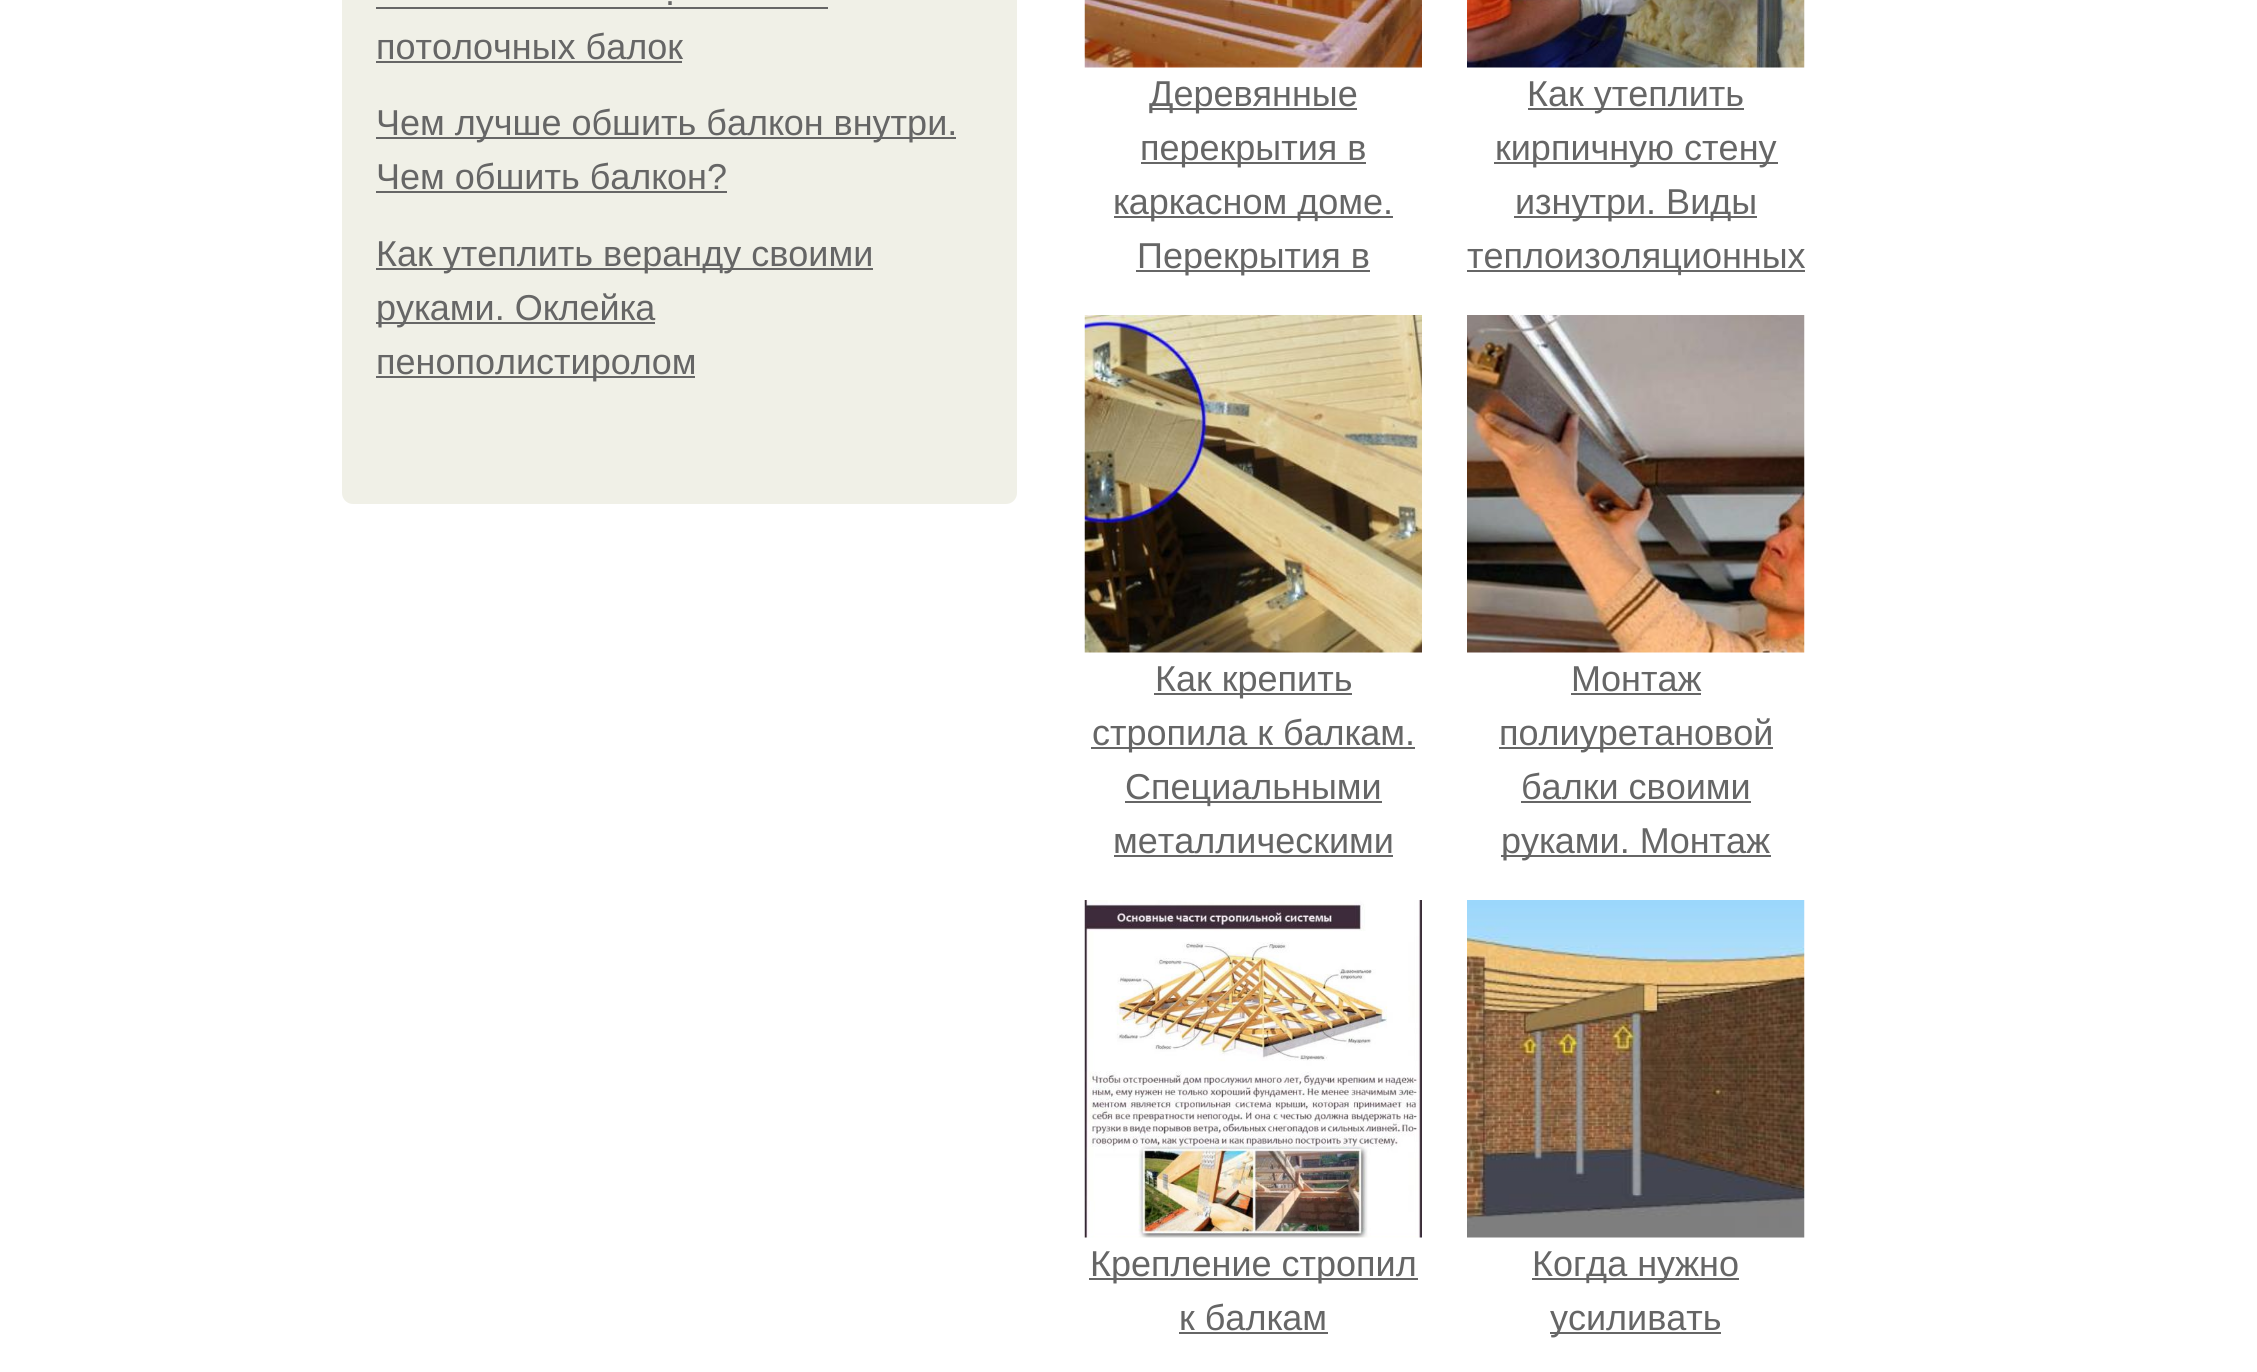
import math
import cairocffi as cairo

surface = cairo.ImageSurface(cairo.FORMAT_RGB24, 2257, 1372)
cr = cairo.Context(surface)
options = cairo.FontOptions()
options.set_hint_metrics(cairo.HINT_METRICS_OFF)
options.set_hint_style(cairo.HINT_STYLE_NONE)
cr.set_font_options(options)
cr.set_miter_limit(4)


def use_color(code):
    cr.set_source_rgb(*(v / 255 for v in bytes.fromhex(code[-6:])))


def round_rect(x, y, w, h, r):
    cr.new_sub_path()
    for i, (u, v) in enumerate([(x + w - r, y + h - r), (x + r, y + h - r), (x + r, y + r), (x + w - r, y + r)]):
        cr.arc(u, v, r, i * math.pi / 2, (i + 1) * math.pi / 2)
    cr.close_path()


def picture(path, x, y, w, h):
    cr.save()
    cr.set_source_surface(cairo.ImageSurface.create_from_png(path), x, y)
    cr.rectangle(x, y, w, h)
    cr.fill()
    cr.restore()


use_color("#ffffff")
cr.paint()
use_color("#f0f0e7")
round_rect(342, -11, 675, 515, 11)
cr.fill()
cr.select_font_face("Liberation Sans")
cr.set_font_size(36)
use_color("#666666")
cr.move_to(665, 5)
cr.show_text(".")
cr.rectangle(376, 7, 452, 2)
cr.fill()
cr.move_to(376, 59)
cr.show_text("потолочных балок")
cr.rectangle(376, 61, 306, 2)
cr.fill()
cr.rectangle(376, 137, 580, 2)
cr.fill()
cr.move_to(376, 135)
cr.show_text("Чем лучше обшить балкон внутри.")
cr.move_to(376, 189)
cr.show_text("Чем обшить балкон?")
cr.rectangle(376, 191, 351, 2)
cr.fill()
cr.rectangle(376, 268, 497, 2)
cr.fill()
cr.move_to(376, 266)
cr.show_text("Как утеплить веранду своими")
cr.rectangle(376, 322, 279, 2)
cr.fill()
cr.move_to(376, 320)
cr.show_text("руками. Оклейка")
cr.rectangle(376, 376, 319, 2)
cr.fill()
cr.move_to(376, 374)
cr.show_text("пенополистиролом")
picture("img1.png", 1084, 0, 338, 68)
cr.rectangle(1150, 108, 207, 2)
cr.fill()
cr.move_to(1149, 106)
cr.show_text("Деревянные")
cr.rectangle(1141, 162, 225, 2)
cr.fill()
cr.move_to(1140, 160)
cr.show_text("перекрытия в")
cr.rectangle(1114, 216, 279, 2)
cr.fill()
cr.move_to(1113, 214)
cr.show_text("каркасном доме.")
cr.rectangle(1136, 270, 234, 2)
cr.fill()
cr.move_to(1137, 268)
cr.show_text("Перекрытия в")
picture("img2.png", 1467, 0, 338, 68)
cr.rectangle(1528, 108, 216, 2)
cr.fill()
cr.move_to(1527, 106)
cr.show_text("Как утеплить")
cr.rectangle(1494, 162, 284, 2)
cr.fill()
cr.move_to(1495, 160)
cr.show_text("кирпичную стену")
cr.rectangle(1514, 216, 243, 2)
cr.fill()
cr.move_to(1515, 214)
cr.show_text("изнутри. Виды")
cr.rectangle(1467, 270, 338, 2)
cr.fill()
cr.move_to(1467, 268)
cr.show_text("теплоизоляционных")
picture("img3.png", 1084, 315, 338, 338)
cr.rectangle(1154, 693, 198, 2)
cr.fill()
cr.move_to(1155, 691)
cr.show_text("Как крепить")
cr.rectangle(1091, 747, 324, 2)
cr.fill()
cr.move_to(1092, 745)
cr.show_text("стропила к балкам.")
cr.rectangle(1125, 801, 257, 2)
cr.fill()
cr.move_to(1125, 799)
cr.show_text("Специальными")
cr.move_to(1113, 853)
cr.show_text("металлическими")
cr.rectangle(1114, 855, 279, 2)
cr.fill()
picture("img4.png", 1467, 315, 338, 338)
cr.move_to(1571, 691)
cr.show_text("Монтаж")
cr.rectangle(1571, 693, 130, 2)
cr.fill()
cr.rectangle(1499, 747, 274, 2)
cr.fill()
cr.move_to(1499, 745)
cr.show_text("полиуретановой")
cr.move_to(1521, 799)
cr.show_text("балки своими")
cr.rectangle(1521, 801, 230, 2)
cr.fill()
cr.rectangle(1501, 855, 270, 2)
cr.fill()
cr.move_to(1501, 853)
cr.show_text("руками. Монтаж")
picture("img5.png", 1084, 900, 338, 338)
cr.rectangle(1089, 1278, 329, 2)
cr.fill()
cr.move_to(1090, 1276)
cr.show_text("Крепление стропил")
cr.move_to(1179, 1330)
cr.show_text("к балкам")
cr.rectangle(1179, 1332, 149, 2)
cr.fill()
picture("img6.png", 1467, 900, 338, 338)
cr.rectangle(1532, 1278, 207, 2)
cr.fill()
cr.move_to(1532, 1276)
cr.show_text("Когда нужно")
cr.rectangle(1550, 1332, 171, 2)
cr.fill()
cr.move_to(1550, 1330)
cr.show_text("усиливать")
surface.write_to_png("result.png")
